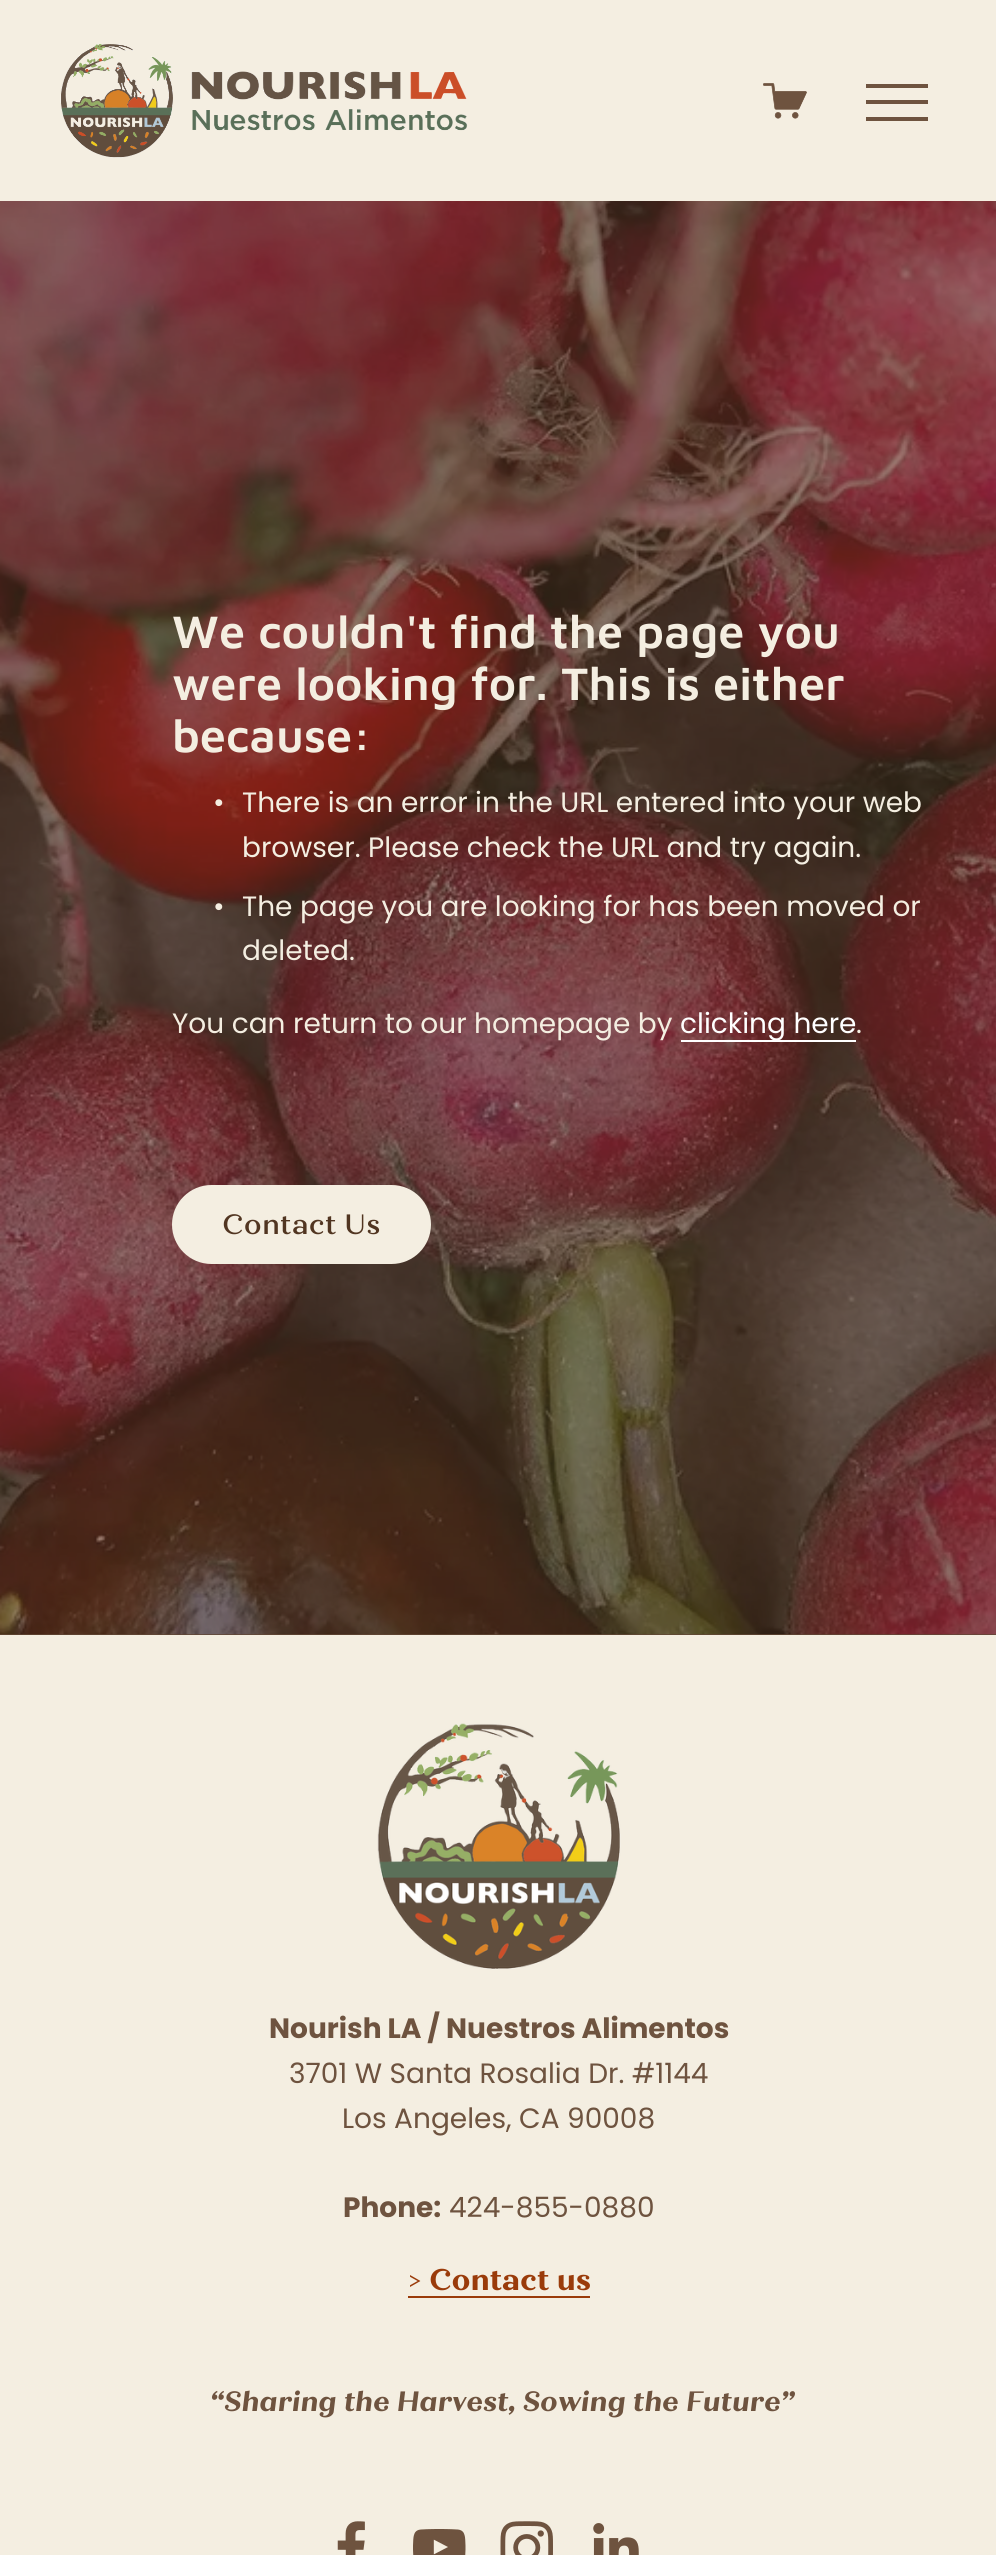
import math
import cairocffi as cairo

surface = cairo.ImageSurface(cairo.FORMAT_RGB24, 996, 2555)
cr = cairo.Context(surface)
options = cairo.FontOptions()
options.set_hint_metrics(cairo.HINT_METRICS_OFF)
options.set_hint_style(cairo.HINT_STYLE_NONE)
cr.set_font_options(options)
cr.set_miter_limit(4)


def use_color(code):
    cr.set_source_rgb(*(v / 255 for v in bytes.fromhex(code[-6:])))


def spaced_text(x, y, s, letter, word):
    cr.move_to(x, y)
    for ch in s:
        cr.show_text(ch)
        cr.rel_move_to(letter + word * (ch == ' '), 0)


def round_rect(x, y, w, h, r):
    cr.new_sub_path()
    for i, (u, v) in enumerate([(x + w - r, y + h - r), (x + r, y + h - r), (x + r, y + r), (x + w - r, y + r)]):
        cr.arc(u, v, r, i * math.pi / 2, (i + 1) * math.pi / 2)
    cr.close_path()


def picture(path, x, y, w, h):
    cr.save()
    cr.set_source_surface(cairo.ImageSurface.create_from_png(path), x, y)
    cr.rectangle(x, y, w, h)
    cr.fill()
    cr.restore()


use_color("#f4eee1")
cr.paint()
picture("img1.png", 60, 44, 408, 114)
picture("img2.png", 763, 83, 44, 36)
use_color("#6e533f")
cr.rectangle(866, 84, 62, 4)
cr.fill()
cr.rectangle(866, 100, 62, 4)
cr.fill()
cr.rectangle(866, 117, 62, 4)
cr.fill()
use_color("#604633")
cr.rectangle(0, 1634, 996, 1)
cr.fill()
picture("img3.png", 0, 201, 996, 1434)
cr.select_font_face("Maven Pro SemiBold")
cr.set_font_size(46.9)
use_color("#f4eee1")
cr.move_to(172, 648)
cr.show_text("We couldn't find the page you")
cr.move_to(172, 700)
cr.show_text("were looking for. This is either")
cr.move_to(172, 752)
cr.show_text("because:")
cr.select_font_face("Poppins")
cr.set_font_size(28)
cr.move_to(213, 812)
cr.show_text("•")
cr.move_to(242, 812)
cr.show_text("There is an error in the URL entered into your web")
cr.move_to(242, 857)
cr.show_text("browser. Please check the URL and try again.")
cr.move_to(213, 916)
cr.show_text("•")
cr.move_to(242, 916)
cr.show_text("The page you are looking for has been moved or")
cr.move_to(242, 960)
cr.show_text("deleted.")
cr.move_to(172, 1033)
cr.show_text("You can return to our homepage by")
use_color("#ffffff")
cr.rectangle(681, 1040, 175, 2)
cr.fill()
cr.move_to(680, 1033)
cr.show_text("clicking here")
use_color("#f4eee1")
cr.move_to(856, 1033)
cr.show_text(".")
round_rect(172, 1185, 259, 79, 39.5)
cr.fill()
cr.select_font_face("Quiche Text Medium")
use_color("#513521")
spaced_text(222, 1234, "Contact Us", -0.25, 0)
picture("img4.png", 377, 1723, 244, 247)
cr.select_font_face("Poppins", cairo.FONT_SLANT_NORMAL, cairo.FONT_WEIGHT_BOLD)
use_color("#6e533f")
cr.move_to(269, 2038)
cr.show_text("Nourish LA / Nuestros Alimentos")
cr.select_font_face("Poppins")
cr.move_to(289, 2083)
cr.show_text("3701 W Santa Rosalia Dr. #1144")
cr.move_to(342, 2128)
cr.show_text("Los Angeles, CA 90008")
cr.select_font_face("Poppins", cairo.FONT_SLANT_NORMAL, cairo.FONT_WEIGHT_BOLD)
cr.move_to(343, 2217)
cr.show_text("Phone:")
cr.select_font_face("Poppins")
cr.move_to(449, 2217)
cr.show_text("424-855-0880")
cr.select_font_face("Quiche Text", cairo.FONT_SLANT_NORMAL, cairo.FONT_WEIGHT_BOLD)
cr.set_font_size(30)
use_color("#9a3b0a")
spaced_text(408, 2290, "> Contact us", -0.6, 0)
cr.rectangle(408, 2296, 182, 2)
cr.fill()
cr.select_font_face("Quiche Text", cairo.FONT_SLANT_ITALIC, cairo.FONT_WEIGHT_BOLD)
cr.set_font_size(28)
use_color("#6e533f")
spaced_text(210, 2411, "“Sharing the Harvest, Sowing the Future”", -0.55, 0)
picture("img5.png", 337, 2521, 28, 34)
picture("img6.png", 413, 2529, 53, 26)
picture("img7.png", 500, 2521, 53, 34)
picture("img8.png", 593, 2523, 46, 32)
surface.write_to_png("result.png")
